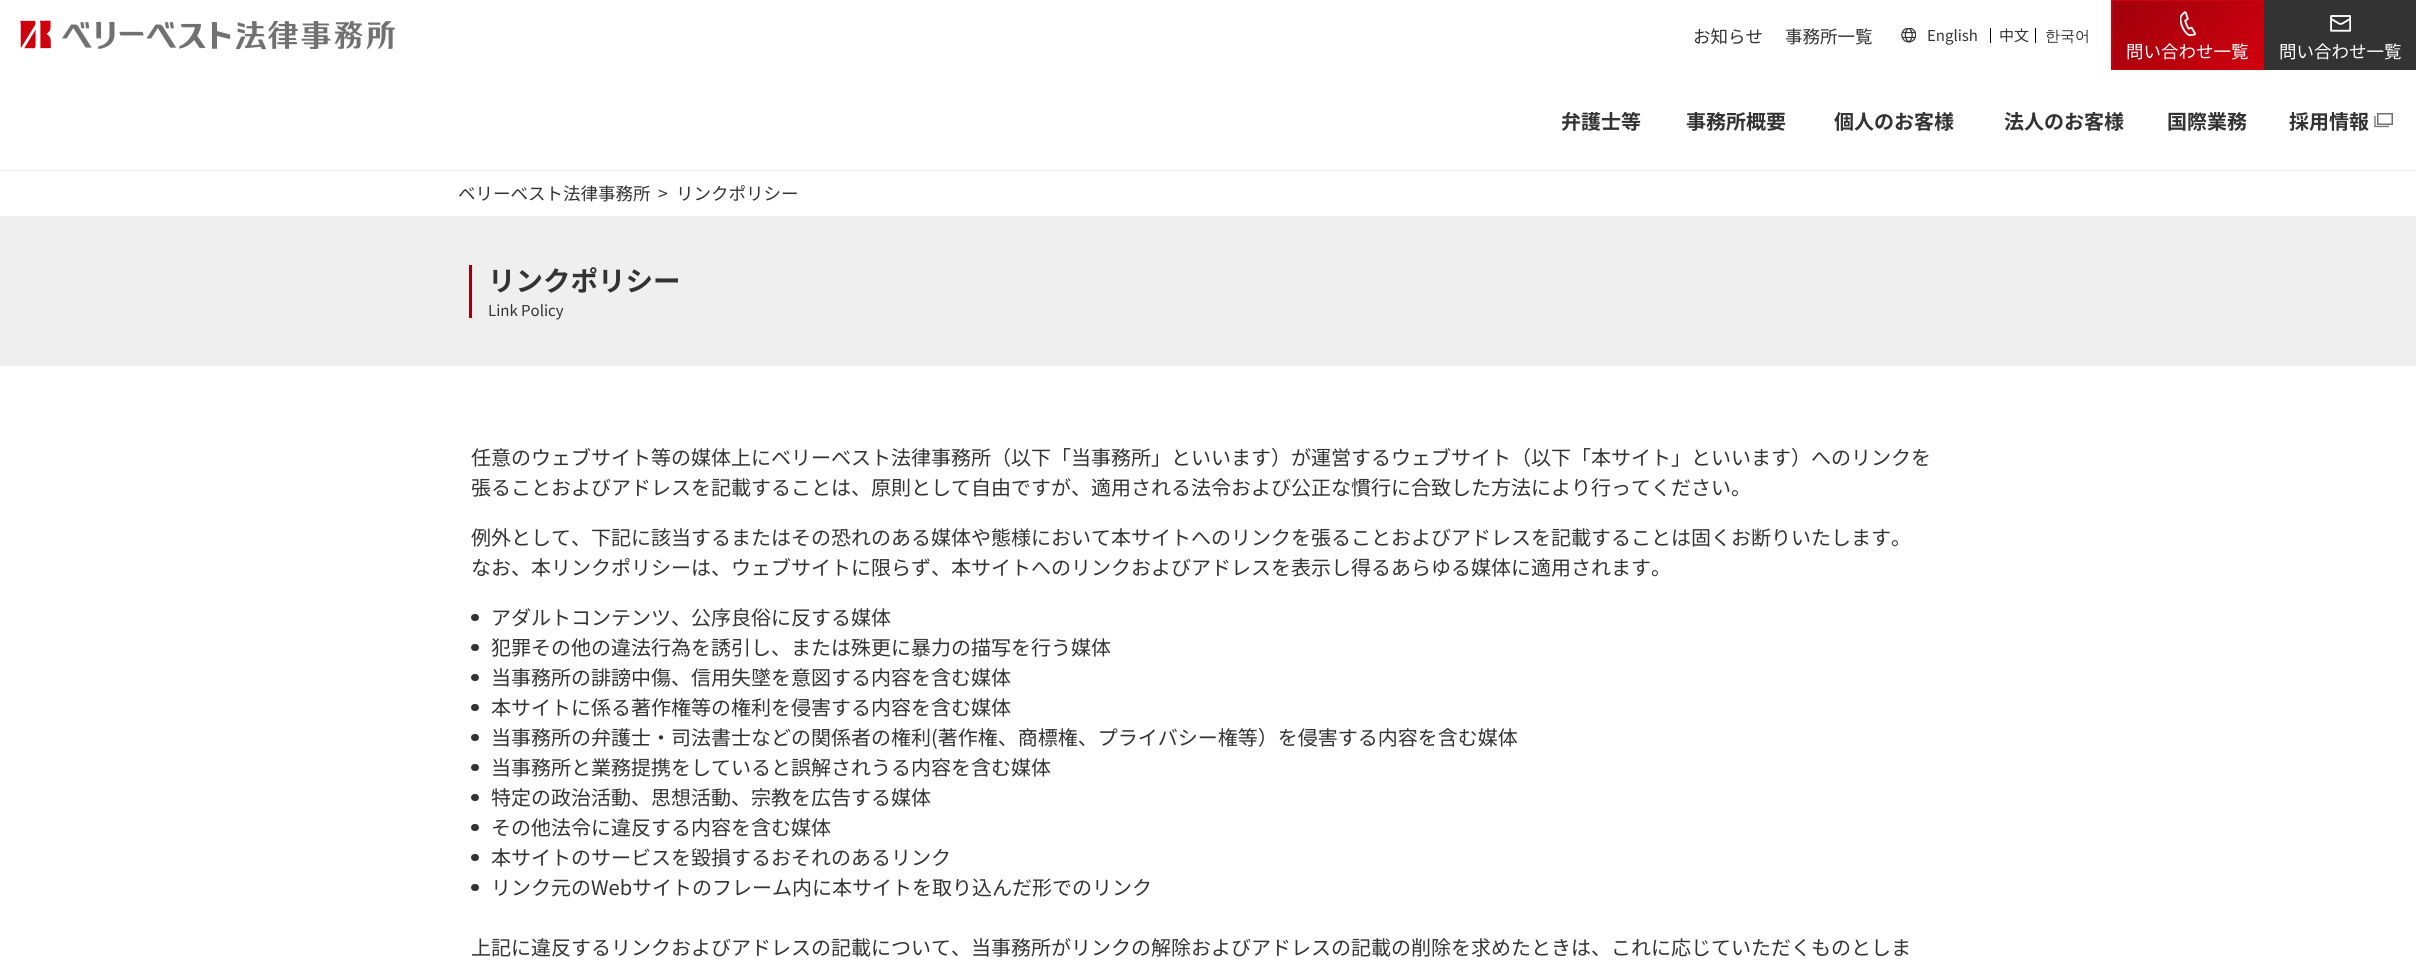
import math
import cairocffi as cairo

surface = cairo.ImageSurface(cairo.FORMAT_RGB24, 2416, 968)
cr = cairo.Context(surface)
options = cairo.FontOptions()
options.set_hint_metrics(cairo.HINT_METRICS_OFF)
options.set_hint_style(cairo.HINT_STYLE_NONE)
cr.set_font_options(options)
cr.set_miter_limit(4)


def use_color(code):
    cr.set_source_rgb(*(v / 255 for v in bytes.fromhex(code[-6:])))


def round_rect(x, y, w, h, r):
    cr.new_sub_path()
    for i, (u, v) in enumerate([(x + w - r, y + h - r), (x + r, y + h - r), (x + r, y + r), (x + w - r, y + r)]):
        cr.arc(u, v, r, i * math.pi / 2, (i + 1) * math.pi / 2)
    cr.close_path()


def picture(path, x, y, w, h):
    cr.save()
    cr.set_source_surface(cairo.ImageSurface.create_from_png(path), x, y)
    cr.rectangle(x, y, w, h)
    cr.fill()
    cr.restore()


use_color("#ffffff")
cr.paint()
use_color("#efefef")
cr.rectangle(0, 170, 2416, 1)
cr.fill()
picture("img1.png", 20, 20, 375, 30)
cr.select_font_face("Noto Sans JP")
cr.set_font_size(17.5)
use_color("#333333")
cr.move_to(1693, 43)
cr.show_text("お知らせ")
cr.move_to(1785, 43)
cr.show_text("事務所一覧")
picture("img2.png", 1901, 28, 15, 15)
cr.set_font_size(15)
cr.move_to(1927, 41)
cr.show_text("English")
use_color("#000000")
cr.rectangle(1990, 28, 1, 15)
cr.fill()
use_color("#333333")
cr.move_to(1999, 41)
cr.show_text("中文")
use_color("#000000")
cr.rectangle(2035, 28, 1, 15)
cr.fill()
cr.select_font_face("WenQuanYi Zen Hei Medium")
use_color("#333333")
cr.move_to(2045, 41)
cr.show_text("한국어")
gradient = cairo.LinearGradient(1983, -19, 2092, 89)
gradient.add_color_stop_rgba(0, 0.627, 0, 0.047, 1)
gradient.add_color_stop_rgba(1, 0.812, 0, 0.055, 1)
cr.set_source(gradient)
cr.rectangle(2112, 1, 1, 68)
cr.fill()
gradient = cairo.LinearGradient(2133, -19, 2242, 89)
gradient.add_color_stop_rgba(0, 0.627, 0, 0.047, 1)
gradient.add_color_stop_rgba(1, 0.812, 0, 0.055, 1)
cr.set_source(gradient)
cr.rectangle(2113, 1, 150, 68)
cr.fill()
cr.rectangle(2111.5, 0.5, 152, 69)
use_color("#cf000e")
cr.set_line_width(1)
cr.stroke()
picture("img3.png", 2180, 11, 16, 25)
cr.select_font_face("Noto Sans JP")
cr.set_font_size(17.5)
use_color("#ffffff")
cr.move_to(2126, 58)
cr.show_text("問い合わせ一覧")
use_color("#333333")
cr.rectangle(2264, 0, 152, 70)
cr.fill()
picture("img4.png", 2330, 15, 21, 17)
use_color("#ffffff")
cr.move_to(2279, 58)
cr.show_text("問い合わせ一覧")
cr.select_font_face("Noto Sans JP", cairo.FONT_SLANT_NORMAL, cairo.FONT_WEIGHT_BOLD)
cr.set_font_size(20)
use_color("#333333")
cr.move_to(1561, 129)
cr.show_text("弁護士等")
cr.move_to(1686, 129)
cr.show_text("事務所概要")
cr.move_to(1834, 129)
cr.show_text("個人のお客様")
cr.move_to(2004, 129)
cr.show_text("法人のお客様")
cr.move_to(2167, 129)
cr.show_text("国際業務")
cr.move_to(2289, 129)
cr.show_text("採用情報")
cr.rectangle(2377.75, 113.75, 14.5, 10.5)
use_color("#707070")
cr.set_line_width(1.5)
cr.stroke()
cr.new_path()
cr.move_to(2375, 116)
cr.line_to(2375, 126.5)
cr.line_to(2389, 126.5)
cr.set_line_width(1.3)
cr.stroke()
cr.select_font_face("Noto Sans JP")
cr.set_font_size(17.5)
use_color("#333333")
cr.move_to(458, 200)
cr.show_text("ベリーベスト法律事務所")
cr.move_to(658, 200)
cr.show_text(">")
cr.move_to(676, 200)
cr.show_text("リンクポリシー")
use_color("#efefef")
cr.rectangle(0, 216, 2416, 150)
cr.fill()
use_color("#a0000c")
cr.rectangle(469, 265, 3, 53)
cr.fill()
cr.select_font_face("Noto Sans JP", cairo.FONT_SLANT_NORMAL, cairo.FONT_WEIGHT_BOLD)
cr.set_font_size(27.5)
use_color("#333333")
cr.move_to(488, 291)
cr.show_text("リンクポリシー")
cr.select_font_face("Noto Sans JP")
cr.set_font_size(15)
cr.move_to(488, 316)
cr.show_text("Link Policy")
cr.set_font_size(20)
cr.move_to(471, 465)
cr.show_text("任意のウェブサイト等の媒体上にベリーベスト法律事務所（以下「当事務所」といいます）が運営するウェブサイト（以下「本サイト」といいます）へのリンクを")
cr.move_to(471, 495)
cr.show_text("張ることおよびアドレスを記載することは、原則として自由ですが、適用される法令および公正な慣行に合致した方法により行ってください。")
cr.move_to(471, 545)
cr.show_text("例外として、下記に該当するまたはその恐れのある媒体や態様において本サイトへのリンクを張ることおよびアドレスを記載することは固くお断りいたします。")
cr.move_to(471, 575)
cr.show_text("なお、本リンクポリシーは、ウェブサイトに限らず、本サイトへのリンクおよびアドレスを表示し得るあらゆる媒体に適用されます。")
round_rect(471, 614, 8, 7, 3.5)
cr.fill()
cr.move_to(491, 625)
cr.show_text("アダルトコンテンツ、公序良俗に反する媒体")
round_rect(471, 644, 8, 7, 3.5)
cr.fill()
cr.move_to(491, 655)
cr.show_text("犯罪その他の違法行為を誘引し、または殊更に暴力の描写を行う媒体")
round_rect(471, 674, 8, 7, 3.5)
cr.fill()
cr.move_to(491, 685)
cr.show_text("当事務所の誹謗中傷、信用失墜を意図する内容を含む媒体")
round_rect(471, 704, 8, 7, 3.5)
cr.fill()
cr.move_to(491, 715)
cr.show_text("本サイトに係る著作権等の権利を侵害する内容を含む媒体")
round_rect(471, 734, 8, 7, 3.5)
cr.fill()
cr.move_to(491, 745)
cr.show_text("当事務所の弁護士・司法書士などの関係者の権利(著作権、商標権、プライバシー権等）を侵害する内容を含む媒体")
round_rect(471, 764, 8, 7, 3.5)
cr.fill()
cr.move_to(491, 775)
cr.show_text("当事務所と業務提携をしていると誤解されうる内容を含む媒体")
round_rect(471, 794, 8, 7, 3.5)
cr.fill()
cr.move_to(491, 805)
cr.show_text("特定の政治活動、思想活動、宗教を広告する媒体")
round_rect(471, 824, 8, 7, 3.5)
cr.fill()
cr.move_to(491, 835)
cr.show_text("その他法令に違反する内容を含む媒体")
round_rect(471, 854, 8, 7, 3.5)
cr.fill()
cr.move_to(491, 865)
cr.show_text("本サイトのサービスを毀損するおそれのあるリンク")
round_rect(471, 884, 8, 7, 3.5)
cr.fill()
cr.move_to(491, 895)
cr.show_text("リンク元のWebサイトのフレーム内に本サイトを取り込んだ形でのリンク")
cr.move_to(471, 955)
cr.show_text("上記に違反するリンクおよびアドレスの記載について、当事務所がリンクの解除およびアドレスの記載の削除を求めたときは、これに応じていただくものとしま")
surface.write_to_png("result.png")
